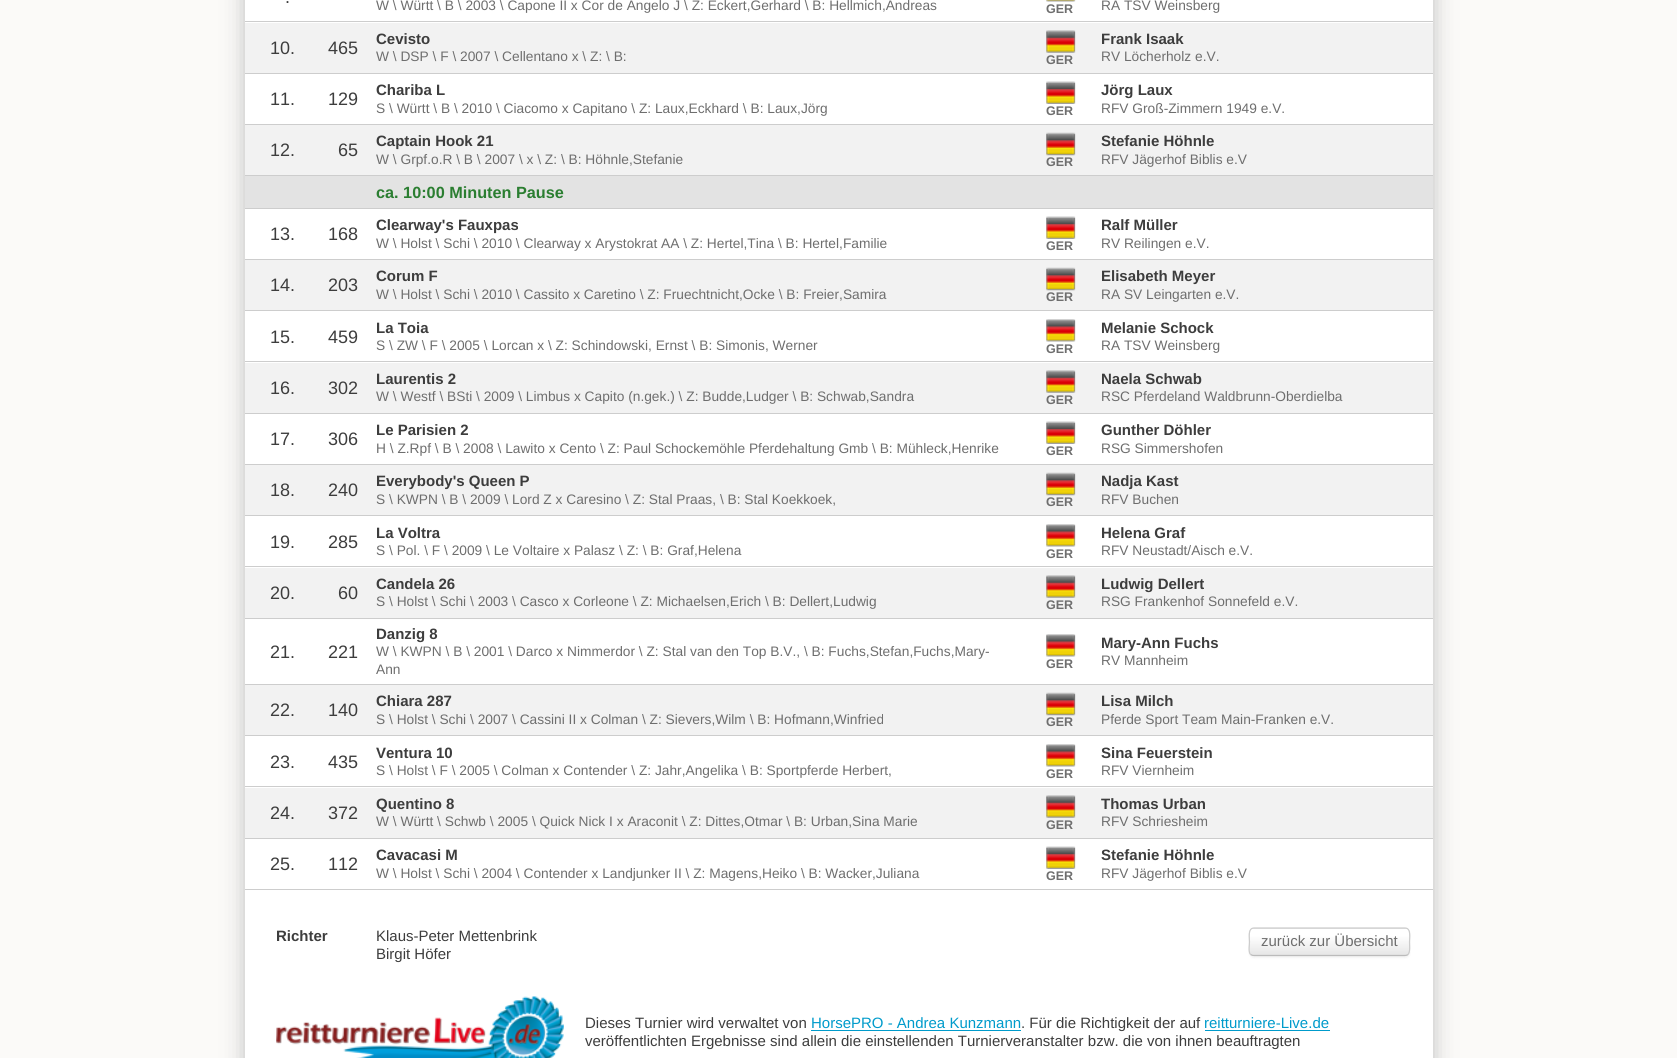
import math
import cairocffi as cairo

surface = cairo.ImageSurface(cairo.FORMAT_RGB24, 1677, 1058)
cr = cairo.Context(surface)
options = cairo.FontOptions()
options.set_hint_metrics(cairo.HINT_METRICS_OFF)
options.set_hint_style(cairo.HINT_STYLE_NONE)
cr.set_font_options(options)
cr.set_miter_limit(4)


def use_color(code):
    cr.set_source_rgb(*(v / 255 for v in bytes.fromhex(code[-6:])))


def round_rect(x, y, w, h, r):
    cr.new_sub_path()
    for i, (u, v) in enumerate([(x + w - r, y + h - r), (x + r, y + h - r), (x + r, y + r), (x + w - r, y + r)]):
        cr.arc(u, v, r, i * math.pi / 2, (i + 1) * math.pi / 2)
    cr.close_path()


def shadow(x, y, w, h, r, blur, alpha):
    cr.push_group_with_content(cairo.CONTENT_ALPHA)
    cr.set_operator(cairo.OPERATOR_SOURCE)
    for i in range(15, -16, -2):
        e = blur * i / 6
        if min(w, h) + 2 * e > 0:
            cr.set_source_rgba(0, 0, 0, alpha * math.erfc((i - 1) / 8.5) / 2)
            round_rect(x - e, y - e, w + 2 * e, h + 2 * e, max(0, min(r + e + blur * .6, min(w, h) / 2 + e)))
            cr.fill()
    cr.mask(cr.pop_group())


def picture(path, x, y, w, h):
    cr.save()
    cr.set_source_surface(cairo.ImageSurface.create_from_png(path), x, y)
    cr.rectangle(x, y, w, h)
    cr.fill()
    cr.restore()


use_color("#fbfaf8")
cr.paint()
use_color("#bebebe")
shadow(245, -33, 1188, 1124, 0, 11, 1)
use_color("#ffffff")
cr.rectangle(245, 0, 1188, 1058)
cr.fill()
use_color("#cdcdcd")
cr.rectangle(245, 21, 1188, 1)
cr.fill()
cr.select_font_face("Liberation Sans")
cr.set_font_size(18)
use_color("#3d3d3d")
cr.move_to(285, 3)
cr.show_text(".")
cr.set_font_size(13.75)
use_color("#6e6e6e")
cr.move_to(376, 10)
cr.show_text("W \\ Württ \\ B \\ 2003 \\ Capone II x Cor de Angelo J \\ Z: Eckert,Gerhard \\ B: Hellmich,Andreas")
cr.move_to(1101, 10)
cr.show_text("RA TSV Weinsberg")
picture("img1.png", 1046, 0, 30, 2)
cr.select_font_face("Liberation Sans", cairo.FONT_SLANT_NORMAL, cairo.FONT_WEIGHT_BOLD)
cr.set_font_size(12.5)
cr.move_to(1046, 13)
cr.show_text("GER")
use_color("#f2f2f2")
cr.rectangle(245, 23, 1188, 50)
cr.fill()
use_color("#cdcdcd")
cr.rectangle(245, 73, 1188, 1)
cr.fill()
cr.select_font_face("Liberation Sans")
cr.set_font_size(18)
use_color("#3d3d3d")
cr.move_to(270, 54)
cr.show_text("10.")
cr.move_to(328, 54)
cr.show_text("465")
cr.select_font_face("Liberation Sans", cairo.FONT_SLANT_NORMAL, cairo.FONT_WEIGHT_BOLD)
cr.set_font_size(15)
cr.move_to(376, 44)
cr.show_text("Cevisto")
cr.select_font_face("Liberation Sans")
cr.set_font_size(13.75)
use_color("#6e6e6e")
cr.move_to(376, 61)
cr.show_text("W \\ DSP \\ F \\ 2007 \\ Cellentano x \\ Z: \\ B:")
cr.select_font_face("Liberation Sans", cairo.FONT_SLANT_NORMAL, cairo.FONT_WEIGHT_BOLD)
cr.set_font_size(15)
use_color("#3d3d3d")
cr.move_to(1101, 44)
cr.show_text("Frank Isaak")
cr.select_font_face("Liberation Sans")
cr.set_font_size(13.75)
use_color("#6e6e6e")
cr.move_to(1101, 61)
cr.show_text("RV Löcherholz e.V.")
picture("img2.png", 1046, 30, 30, 23)
cr.select_font_face("Liberation Sans", cairo.FONT_SLANT_NORMAL, cairo.FONT_WEIGHT_BOLD)
cr.set_font_size(12.5)
cr.move_to(1046, 64)
cr.show_text("GER")
use_color("#cdcdcd")
cr.rectangle(245, 124, 1188, 1)
cr.fill()
cr.select_font_face("Liberation Sans")
cr.set_font_size(18)
use_color("#3d3d3d")
cr.move_to(270, 105)
cr.show_text("11.")
cr.move_to(328, 105)
cr.show_text("129")
cr.select_font_face("Liberation Sans", cairo.FONT_SLANT_NORMAL, cairo.FONT_WEIGHT_BOLD)
cr.set_font_size(15)
cr.move_to(376, 95)
cr.show_text("Chariba L")
cr.select_font_face("Liberation Sans")
cr.set_font_size(13.75)
use_color("#6e6e6e")
cr.move_to(376, 113)
cr.show_text("S \\ Württ \\ B \\ 2010 \\ Ciacomo x Capitano \\ Z: Laux,Eckhard \\ B: Laux,Jörg")
cr.select_font_face("Liberation Sans", cairo.FONT_SLANT_NORMAL, cairo.FONT_WEIGHT_BOLD)
cr.set_font_size(15)
use_color("#3d3d3d")
cr.move_to(1101, 95)
cr.show_text("Jörg Laux")
cr.select_font_face("Liberation Sans")
cr.set_font_size(13.75)
use_color("#6e6e6e")
cr.move_to(1101, 113)
cr.show_text("RFV Groß-Zimmern 1949 e.V.")
picture("img3.png", 1046, 81, 30, 23)
cr.select_font_face("Liberation Sans", cairo.FONT_SLANT_NORMAL, cairo.FONT_WEIGHT_BOLD)
cr.set_font_size(12.5)
cr.move_to(1046, 115)
cr.show_text("GER")
use_color("#f2f2f2")
cr.rectangle(245, 125, 1188, 50)
cr.fill()
use_color("#cdcdcd")
cr.rectangle(245, 175, 1188, 1)
cr.fill()
cr.select_font_face("Liberation Sans")
cr.set_font_size(18)
use_color("#3d3d3d")
cr.move_to(270, 156)
cr.show_text("12.")
cr.move_to(338, 156)
cr.show_text("65")
cr.select_font_face("Liberation Sans", cairo.FONT_SLANT_NORMAL, cairo.FONT_WEIGHT_BOLD)
cr.set_font_size(15)
cr.move_to(376, 146)
cr.show_text("Captain Hook 21")
cr.select_font_face("Liberation Sans")
cr.set_font_size(13.75)
use_color("#6e6e6e")
cr.move_to(376, 164)
cr.show_text("W \\ Grpf.o.R \\ B \\ 2007 \\ x \\ Z: \\ B: Höhnle,Stefanie")
cr.select_font_face("Liberation Sans", cairo.FONT_SLANT_NORMAL, cairo.FONT_WEIGHT_BOLD)
cr.set_font_size(15)
use_color("#3d3d3d")
cr.move_to(1101, 146)
cr.show_text("Stefanie Höhnle")
cr.select_font_face("Liberation Sans")
cr.set_font_size(13.75)
use_color("#6e6e6e")
cr.move_to(1101, 164)
cr.show_text("RFV Jägerhof Biblis e.V")
picture("img4.png", 1046, 132, 30, 24)
cr.select_font_face("Liberation Sans", cairo.FONT_SLANT_NORMAL, cairo.FONT_WEIGHT_BOLD)
cr.set_font_size(12.5)
cr.move_to(1046, 166)
cr.show_text("GER")
use_color("#e3e3e3")
cr.rectangle(245, 176, 1188, 32)
cr.fill()
use_color("#cdcdcd")
cr.rectangle(245, 208, 1188, 1)
cr.fill()
cr.set_font_size(16.25)
use_color("#2b7e31")
cr.move_to(376, 198)
cr.show_text("ca. 10:00 Minuten Pause")
use_color("#cdcdcd")
cr.rectangle(245, 259, 1188, 1)
cr.fill()
cr.select_font_face("Liberation Sans")
cr.set_font_size(18)
use_color("#3d3d3d")
cr.move_to(270, 240)
cr.show_text("13.")
cr.move_to(328, 240)
cr.show_text("168")
cr.select_font_face("Liberation Sans", cairo.FONT_SLANT_NORMAL, cairo.FONT_WEIGHT_BOLD)
cr.set_font_size(15)
cr.move_to(376, 230)
cr.show_text("Clearway's Fauxpas")
cr.select_font_face("Liberation Sans")
cr.set_font_size(13.75)
use_color("#6e6e6e")
cr.move_to(376, 248)
cr.show_text("W \\ Holst \\ Schi \\ 2010 \\ Clearway x Arystokrat AA \\ Z: Hertel,Tina \\ B: Hertel,Familie")
cr.select_font_face("Liberation Sans", cairo.FONT_SLANT_NORMAL, cairo.FONT_WEIGHT_BOLD)
cr.set_font_size(15)
use_color("#3d3d3d")
cr.move_to(1101, 230)
cr.show_text("Ralf Müller")
cr.select_font_face("Liberation Sans")
cr.set_font_size(13.75)
use_color("#6e6e6e")
cr.move_to(1101, 248)
cr.show_text("RV Reilingen e.V.")
picture("img3.png", 1046, 216, 30, 23)
cr.select_font_face("Liberation Sans", cairo.FONT_SLANT_NORMAL, cairo.FONT_WEIGHT_BOLD)
cr.set_font_size(12.5)
cr.move_to(1046, 250)
cr.show_text("GER")
use_color("#f2f2f2")
cr.rectangle(245, 260, 1188, 50)
cr.fill()
use_color("#cdcdcd")
cr.rectangle(245, 310, 1188, 1)
cr.fill()
cr.select_font_face("Liberation Sans")
cr.set_font_size(18)
use_color("#3d3d3d")
cr.move_to(270, 291)
cr.show_text("14.")
cr.move_to(328, 291)
cr.show_text("203")
cr.select_font_face("Liberation Sans", cairo.FONT_SLANT_NORMAL, cairo.FONT_WEIGHT_BOLD)
cr.set_font_size(15)
cr.move_to(376, 281)
cr.show_text("Corum F")
cr.select_font_face("Liberation Sans")
cr.set_font_size(13.75)
use_color("#6e6e6e")
cr.move_to(376, 299)
cr.show_text("W \\ Holst \\ Schi \\ 2010 \\ Cassito x Caretino \\ Z: Fruechtnicht,Ocke \\ B: Freier,Samira")
cr.select_font_face("Liberation Sans", cairo.FONT_SLANT_NORMAL, cairo.FONT_WEIGHT_BOLD)
cr.set_font_size(15)
use_color("#3d3d3d")
cr.move_to(1101, 281)
cr.show_text("Elisabeth Meyer")
cr.select_font_face("Liberation Sans")
cr.set_font_size(13.75)
use_color("#6e6e6e")
cr.move_to(1101, 299)
cr.show_text("RA SV Leingarten e.V.")
picture("img4.png", 1046, 267, 30, 24)
cr.select_font_face("Liberation Sans", cairo.FONT_SLANT_NORMAL, cairo.FONT_WEIGHT_BOLD)
cr.set_font_size(12.5)
cr.move_to(1046, 301)
cr.show_text("GER")
use_color("#cdcdcd")
cr.rectangle(245, 361, 1188, 1)
cr.fill()
cr.select_font_face("Liberation Sans")
cr.set_font_size(18)
use_color("#3d3d3d")
cr.move_to(270, 343)
cr.show_text("15.")
cr.move_to(328, 343)
cr.show_text("459")
cr.select_font_face("Liberation Sans", cairo.FONT_SLANT_NORMAL, cairo.FONT_WEIGHT_BOLD)
cr.set_font_size(15)
cr.move_to(376, 333)
cr.show_text("La Toia")
cr.select_font_face("Liberation Sans")
cr.set_font_size(13.75)
use_color("#6e6e6e")
cr.move_to(376, 350)
cr.show_text("S \\ ZW \\ F \\ 2005 \\ Lorcan x \\ Z: Schindowski, Ernst \\ B: Simonis, Werner")
cr.select_font_face("Liberation Sans", cairo.FONT_SLANT_NORMAL, cairo.FONT_WEIGHT_BOLD)
cr.set_font_size(15)
use_color("#3d3d3d")
cr.move_to(1101, 333)
cr.show_text("Melanie Schock")
cr.select_font_face("Liberation Sans")
cr.set_font_size(13.75)
use_color("#6e6e6e")
cr.move_to(1101, 350)
cr.show_text("RA TSV Weinsberg")
picture("img5.png", 1046, 319, 30, 23)
cr.select_font_face("Liberation Sans", cairo.FONT_SLANT_NORMAL, cairo.FONT_WEIGHT_BOLD)
cr.set_font_size(12.5)
cr.move_to(1046, 353)
cr.show_text("GER")
use_color("#f2f2f2")
cr.rectangle(245, 363, 1188, 50)
cr.fill()
use_color("#cdcdcd")
cr.rectangle(245, 413, 1188, 1)
cr.fill()
cr.select_font_face("Liberation Sans")
cr.set_font_size(18)
use_color("#3d3d3d")
cr.move_to(270, 394)
cr.show_text("16.")
cr.move_to(328, 394)
cr.show_text("302")
cr.select_font_face("Liberation Sans", cairo.FONT_SLANT_NORMAL, cairo.FONT_WEIGHT_BOLD)
cr.set_font_size(15)
cr.move_to(376, 384)
cr.show_text("Laurentis 2")
cr.select_font_face("Liberation Sans")
cr.set_font_size(13.75)
use_color("#6e6e6e")
cr.move_to(376, 401)
cr.show_text("W \\ Westf \\ BSti \\ 2009 \\ Limbus x Capito (n.gek.) \\ Z: Budde,Ludger \\ B: Schwab,Sandra")
cr.select_font_face("Liberation Sans", cairo.FONT_SLANT_NORMAL, cairo.FONT_WEIGHT_BOLD)
cr.set_font_size(15)
use_color("#3d3d3d")
cr.move_to(1101, 384)
cr.show_text("Naela Schwab")
cr.select_font_face("Liberation Sans")
cr.set_font_size(13.75)
use_color("#6e6e6e")
cr.move_to(1101, 401)
cr.show_text("RSC Pferdeland Waldbrunn-Oberdielba")
picture("img2.png", 1046, 370, 30, 23)
cr.select_font_face("Liberation Sans", cairo.FONT_SLANT_NORMAL, cairo.FONT_WEIGHT_BOLD)
cr.set_font_size(12.5)
cr.move_to(1046, 404)
cr.show_text("GER")
use_color("#cdcdcd")
cr.rectangle(245, 464, 1188, 1)
cr.fill()
cr.select_font_face("Liberation Sans")
cr.set_font_size(18)
use_color("#3d3d3d")
cr.move_to(270, 445)
cr.show_text("17.")
cr.move_to(328, 445)
cr.show_text("306")
cr.select_font_face("Liberation Sans", cairo.FONT_SLANT_NORMAL, cairo.FONT_WEIGHT_BOLD)
cr.set_font_size(15)
cr.move_to(376, 435)
cr.show_text("Le Parisien 2")
cr.select_font_face("Liberation Sans")
cr.set_font_size(13.75)
use_color("#6e6e6e")
cr.move_to(376, 453)
cr.show_text("H \\ Z.Rpf \\ B \\ 2008 \\ Lawito x Cento \\ Z: Paul Schockemöhle Pferdehaltung Gmb \\ B: Mühleck,Henrike")
cr.select_font_face("Liberation Sans", cairo.FONT_SLANT_NORMAL, cairo.FONT_WEIGHT_BOLD)
cr.set_font_size(15)
use_color("#3d3d3d")
cr.move_to(1101, 435)
cr.show_text("Gunther Döhler")
cr.select_font_face("Liberation Sans")
cr.set_font_size(13.75)
use_color("#6e6e6e")
cr.move_to(1101, 453)
cr.show_text("RSG Simmershofen")
picture("img3.png", 1046, 421, 30, 23)
cr.select_font_face("Liberation Sans", cairo.FONT_SLANT_NORMAL, cairo.FONT_WEIGHT_BOLD)
cr.set_font_size(12.5)
cr.move_to(1046, 455)
cr.show_text("GER")
use_color("#f2f2f2")
cr.rectangle(245, 465, 1188, 50)
cr.fill()
use_color("#cdcdcd")
cr.rectangle(245, 515, 1188, 1)
cr.fill()
cr.select_font_face("Liberation Sans")
cr.set_font_size(18)
use_color("#3d3d3d")
cr.move_to(270, 496)
cr.show_text("18.")
cr.move_to(328, 496)
cr.show_text("240")
cr.select_font_face("Liberation Sans", cairo.FONT_SLANT_NORMAL, cairo.FONT_WEIGHT_BOLD)
cr.set_font_size(15)
cr.move_to(376, 486)
cr.show_text("Everybody's Queen P")
cr.select_font_face("Liberation Sans")
cr.set_font_size(13.75)
use_color("#6e6e6e")
cr.move_to(376, 504)
cr.show_text("S \\ KWPN \\ B \\ 2009 \\ Lord Z x Caresino \\ Z: Stal Praas, \\ B: Stal Koekkoek,")
cr.select_font_face("Liberation Sans", cairo.FONT_SLANT_NORMAL, cairo.FONT_WEIGHT_BOLD)
cr.set_font_size(15)
use_color("#3d3d3d")
cr.move_to(1101, 486)
cr.show_text("Nadja Kast")
cr.select_font_face("Liberation Sans")
cr.set_font_size(13.75)
use_color("#6e6e6e")
cr.move_to(1101, 504)
cr.show_text("RFV Buchen")
picture("img4.png", 1046, 472, 30, 24)
cr.select_font_face("Liberation Sans", cairo.FONT_SLANT_NORMAL, cairo.FONT_WEIGHT_BOLD)
cr.set_font_size(12.5)
cr.move_to(1046, 506)
cr.show_text("GER")
use_color("#cdcdcd")
cr.rectangle(245, 566, 1188, 1)
cr.fill()
cr.select_font_face("Liberation Sans")
cr.set_font_size(18)
use_color("#3d3d3d")
cr.move_to(270, 548)
cr.show_text("19.")
cr.move_to(328, 548)
cr.show_text("285")
cr.select_font_face("Liberation Sans", cairo.FONT_SLANT_NORMAL, cairo.FONT_WEIGHT_BOLD)
cr.set_font_size(15)
cr.move_to(376, 538)
cr.show_text("La Voltra")
cr.select_font_face("Liberation Sans")
cr.set_font_size(13.75)
use_color("#6e6e6e")
cr.move_to(376, 555)
cr.show_text("S \\ Pol. \\ F \\ 2009 \\ Le Voltaire x Palasz \\ Z: \\ B: Graf,Helena")
cr.select_font_face("Liberation Sans", cairo.FONT_SLANT_NORMAL, cairo.FONT_WEIGHT_BOLD)
cr.set_font_size(15)
use_color("#3d3d3d")
cr.move_to(1101, 538)
cr.show_text("Helena Graf")
cr.select_font_face("Liberation Sans")
cr.set_font_size(13.75)
use_color("#6e6e6e")
cr.move_to(1101, 555)
cr.show_text("RFV Neustadt/Aisch e.V.")
picture("img5.png", 1046, 524, 30, 23)
cr.select_font_face("Liberation Sans", cairo.FONT_SLANT_NORMAL, cairo.FONT_WEIGHT_BOLD)
cr.set_font_size(12.5)
cr.move_to(1046, 558)
cr.show_text("GER")
use_color("#f2f2f2")
cr.rectangle(245, 568, 1188, 50)
cr.fill()
use_color("#cdcdcd")
cr.rectangle(245, 618, 1188, 1)
cr.fill()
cr.select_font_face("Liberation Sans")
cr.set_font_size(18)
use_color("#3d3d3d")
cr.move_to(270, 599)
cr.show_text("20.")
cr.move_to(338, 599)
cr.show_text("60")
cr.select_font_face("Liberation Sans", cairo.FONT_SLANT_NORMAL, cairo.FONT_WEIGHT_BOLD)
cr.set_font_size(15)
cr.move_to(376, 589)
cr.show_text("Candela 26")
cr.select_font_face("Liberation Sans")
cr.set_font_size(13.75)
use_color("#6e6e6e")
cr.move_to(376, 606)
cr.show_text("S \\ Holst \\ Schi \\ 2003 \\ Casco x Corleone \\ Z: Michaelsen,Erich \\ B: Dellert,Ludwig")
cr.select_font_face("Liberation Sans", cairo.FONT_SLANT_NORMAL, cairo.FONT_WEIGHT_BOLD)
cr.set_font_size(15)
use_color("#3d3d3d")
cr.move_to(1101, 589)
cr.show_text("Ludwig Dellert")
cr.select_font_face("Liberation Sans")
cr.set_font_size(13.75)
use_color("#6e6e6e")
cr.move_to(1101, 606)
cr.show_text("RSG Frankenhof Sonnefeld e.V.")
picture("img2.png", 1046, 575, 30, 23)
cr.select_font_face("Liberation Sans", cairo.FONT_SLANT_NORMAL, cairo.FONT_WEIGHT_BOLD)
cr.set_font_size(12.5)
cr.move_to(1046, 609)
cr.show_text("GER")
use_color("#cdcdcd")
cr.rectangle(245, 684, 1188, 1)
cr.fill()
cr.select_font_face("Liberation Sans")
cr.set_font_size(18)
use_color("#3d3d3d")
cr.move_to(270, 658)
cr.show_text("21.")
cr.move_to(328, 658)
cr.show_text("221")
cr.select_font_face("Liberation Sans", cairo.FONT_SLANT_NORMAL, cairo.FONT_WEIGHT_BOLD)
cr.set_font_size(15)
cr.move_to(376, 639)
cr.show_text("Danzig 8")
cr.select_font_face("Liberation Sans")
cr.set_font_size(13.75)
use_color("#6e6e6e")
cr.move_to(376, 656)
cr.show_text("W \\ KWPN \\ B \\ 2001 \\ Darco x Nimmerdor \\ Z: Stal van den Top B.V., \\ B: Fuchs,Stefan,Fuchs,Mary-")
cr.move_to(376, 674)
cr.show_text("Ann")
cr.select_font_face("Liberation Sans", cairo.FONT_SLANT_NORMAL, cairo.FONT_WEIGHT_BOLD)
cr.set_font_size(15)
use_color("#3d3d3d")
cr.move_to(1101, 648)
cr.show_text("Mary-Ann Fuchs")
cr.select_font_face("Liberation Sans")
cr.set_font_size(13.75)
use_color("#6e6e6e")
cr.move_to(1101, 665)
cr.show_text("RV Mannheim")
picture("img5.png", 1046, 634, 30, 23)
cr.select_font_face("Liberation Sans", cairo.FONT_SLANT_NORMAL, cairo.FONT_WEIGHT_BOLD)
cr.set_font_size(12.5)
cr.move_to(1046, 668)
cr.show_text("GER")
use_color("#f2f2f2")
cr.rectangle(245, 685, 1188, 50)
cr.fill()
use_color("#cdcdcd")
cr.rectangle(245, 735, 1188, 1)
cr.fill()
cr.select_font_face("Liberation Sans")
cr.set_font_size(18)
use_color("#3d3d3d")
cr.move_to(270, 716)
cr.show_text("22.")
cr.move_to(328, 716)
cr.show_text("140")
cr.select_font_face("Liberation Sans", cairo.FONT_SLANT_NORMAL, cairo.FONT_WEIGHT_BOLD)
cr.set_font_size(15)
cr.move_to(376, 706)
cr.show_text("Chiara 287")
cr.select_font_face("Liberation Sans")
cr.set_font_size(13.75)
use_color("#6e6e6e")
cr.move_to(376, 724)
cr.show_text("S \\ Holst \\ Schi \\ 2007 \\ Cassini II x Colman \\ Z: Sievers,Wilm \\ B: Hofmann,Winfried")
cr.select_font_face("Liberation Sans", cairo.FONT_SLANT_NORMAL, cairo.FONT_WEIGHT_BOLD)
cr.set_font_size(15)
use_color("#3d3d3d")
cr.move_to(1101, 706)
cr.show_text("Lisa Milch")
cr.select_font_face("Liberation Sans")
cr.set_font_size(13.75)
use_color("#6e6e6e")
cr.move_to(1101, 724)
cr.show_text("Pferde Sport Team Main-Franken e.V.")
picture("img4.png", 1046, 692, 30, 24)
cr.select_font_face("Liberation Sans", cairo.FONT_SLANT_NORMAL, cairo.FONT_WEIGHT_BOLD)
cr.set_font_size(12.5)
cr.move_to(1046, 726)
cr.show_text("GER")
use_color("#cdcdcd")
cr.rectangle(245, 786, 1188, 1)
cr.fill()
cr.select_font_face("Liberation Sans")
cr.set_font_size(18)
use_color("#3d3d3d")
cr.move_to(270, 768)
cr.show_text("23.")
cr.move_to(328, 768)
cr.show_text("435")
cr.select_font_face("Liberation Sans", cairo.FONT_SLANT_NORMAL, cairo.FONT_WEIGHT_BOLD)
cr.set_font_size(15)
cr.move_to(376, 758)
cr.show_text("Ventura 10")
cr.select_font_face("Liberation Sans")
cr.set_font_size(13.75)
use_color("#6e6e6e")
cr.move_to(376, 775)
cr.show_text("S \\ Holst \\ F \\ 2005 \\ Colman x Contender \\ Z: Jahr,Angelika \\ B: Sportpferde Herbert,")
cr.select_font_face("Liberation Sans", cairo.FONT_SLANT_NORMAL, cairo.FONT_WEIGHT_BOLD)
cr.set_font_size(15)
use_color("#3d3d3d")
cr.move_to(1101, 758)
cr.show_text("Sina Feuerstein")
cr.select_font_face("Liberation Sans")
cr.set_font_size(13.75)
use_color("#6e6e6e")
cr.move_to(1101, 775)
cr.show_text("RFV Viernheim")
picture("img5.png", 1046, 744, 30, 23)
cr.select_font_face("Liberation Sans", cairo.FONT_SLANT_NORMAL, cairo.FONT_WEIGHT_BOLD)
cr.set_font_size(12.5)
cr.move_to(1046, 778)
cr.show_text("GER")
use_color("#f2f2f2")
cr.rectangle(245, 788, 1188, 50)
cr.fill()
use_color("#cdcdcd")
cr.rectangle(245, 838, 1188, 1)
cr.fill()
cr.select_font_face("Liberation Sans")
cr.set_font_size(18)
use_color("#3d3d3d")
cr.move_to(270, 819)
cr.show_text("24.")
cr.move_to(328, 819)
cr.show_text("372")
cr.select_font_face("Liberation Sans", cairo.FONT_SLANT_NORMAL, cairo.FONT_WEIGHT_BOLD)
cr.set_font_size(15)
cr.move_to(376, 809)
cr.show_text("Quentino 8")
cr.select_font_face("Liberation Sans")
cr.set_font_size(13.75)
use_color("#6e6e6e")
cr.move_to(376, 826)
cr.show_text("W \\ Württ \\ Schwb \\ 2005 \\ Quick Nick I x Araconit \\ Z: Dittes,Otmar \\ B: Urban,Sina Marie")
cr.select_font_face("Liberation Sans", cairo.FONT_SLANT_NORMAL, cairo.FONT_WEIGHT_BOLD)
cr.set_font_size(15)
use_color("#3d3d3d")
cr.move_to(1101, 809)
cr.show_text("Thomas Urban")
cr.select_font_face("Liberation Sans")
cr.set_font_size(13.75)
use_color("#6e6e6e")
cr.move_to(1101, 826)
cr.show_text("RFV Schriesheim")
picture("img2.png", 1046, 795, 30, 23)
cr.select_font_face("Liberation Sans", cairo.FONT_SLANT_NORMAL, cairo.FONT_WEIGHT_BOLD)
cr.set_font_size(12.5)
cr.move_to(1046, 829)
cr.show_text("GER")
use_color("#cdcdcd")
cr.rectangle(245, 889, 1188, 1)
cr.fill()
cr.select_font_face("Liberation Sans")
cr.set_font_size(18)
use_color("#3d3d3d")
cr.move_to(270, 870)
cr.show_text("25.")
cr.move_to(328, 870)
cr.show_text("112")
cr.select_font_face("Liberation Sans", cairo.FONT_SLANT_NORMAL, cairo.FONT_WEIGHT_BOLD)
cr.set_font_size(15)
cr.move_to(376, 860)
cr.show_text("Cavacasi M")
cr.select_font_face("Liberation Sans")
cr.set_font_size(13.75)
use_color("#6e6e6e")
cr.move_to(376, 878)
cr.show_text("W \\ Holst \\ Schi \\ 2004 \\ Contender x Landjunker II \\ Z: Magens,Heiko \\ B: Wacker,Juliana")
cr.select_font_face("Liberation Sans", cairo.FONT_SLANT_NORMAL, cairo.FONT_WEIGHT_BOLD)
cr.set_font_size(15)
use_color("#3d3d3d")
cr.move_to(1101, 860)
cr.show_text("Stefanie Höhnle")
cr.select_font_face("Liberation Sans")
cr.set_font_size(13.75)
use_color("#6e6e6e")
cr.move_to(1101, 878)
cr.show_text("RFV Jägerhof Biblis e.V")
picture("img6.png", 1046, 846, 30, 23)
cr.select_font_face("Liberation Sans", cairo.FONT_SLANT_NORMAL, cairo.FONT_WEIGHT_BOLD)
cr.set_font_size(12.5)
cr.move_to(1046, 880)
cr.show_text("GER")
cr.set_font_size(15)
use_color("#3d3d3d")
cr.move_to(276, 941)
cr.show_text("Richter")
cr.select_font_face("Liberation Sans")
cr.move_to(376, 941)
cr.show_text("Klaus-Peter Mettenbrink")
cr.move_to(376, 959)
cr.show_text("Birgit Höfer")
use_color("#000000")
shadow(1249, 929, 161, 29, 5, 1, 0.05)
use_color("#e6e6e6")
round_rect(1249, 928, 161, 28, 5)
cr.fill()
cr.save()
round_rect(1249, 928, 161, 28, 5)
cr.clip()
gradient = cairo.LinearGradient(1329, 929, 1329, 955)
gradient.add_color_stop_rgba(0, 1, 1, 1, 1)
gradient.add_color_stop_rgba(0.25, 1, 1, 1, 1)
gradient.add_color_stop_rgba(1, 0.902, 0.902, 0.902, 1)
cr.set_source(gradient)
cr.rectangle(1250, 929, 159, 26)
cr.fill()
cr.restore()
cr.new_path()
cr.move_to(1408, 954.5)
cr.curve_to(1407.5, 955, 1406, 955.5, 1405, 955.5)
cr.line_to(1254, 955.5)
cr.curve_to(1252.5, 955.5, 1251.5, 955, 1250.5, 954.5)
use_color("#bbbbbb")
cr.set_line_width(1.2)
cr.stroke()
cr.new_path()
cr.move_to(1250.5, 954.5)
cr.curve_to(1248, 951.5, 1249.5, 945, 1249.5, 942)
cr.curve_to(1249.5, 938.5, 1247.5, 928, 1254, 928)
cr.line_to(1405, 928)
cr.curve_to(1411.5, 928, 1409.5, 938.5, 1409.5, 942)
cr.curve_to(1409.5, 945, 1410.5, 951.5, 1408, 954.5)
use_color("#cccccc")
cr.stroke()
use_color("#6e6e6e")
cr.move_to(1261, 946)
cr.show_text("zurück zur Übersicht")
picture("img7.png", 276, 996, 288, 62)
use_color("#3d3d3d")
cr.move_to(585, 1028)
cr.show_text("Dieses Turnier wird verwaltet von")
use_color("#009bcb")
cr.move_to(811, 1028)
cr.show_text("HorsePRO - Andrea Kunzmann")
cr.rectangle(811, 1030, 210, 1)
cr.fill()
use_color("#3d3d3d")
cr.move_to(1021, 1028)
cr.show_text(". Für die Richtigkeit der auf")
use_color("#009bcb")
cr.move_to(1204, 1028)
cr.show_text("reitturniere-Live.de")
cr.rectangle(1205, 1030, 125, 1)
cr.fill()
use_color("#3d3d3d")
cr.move_to(585, 1046)
cr.show_text("veröffentlichten Ergebnisse sind allein die einstellenden Turnierveranstalter bzw. die von ihnen beauftragten")
surface.write_to_png("result.png")
